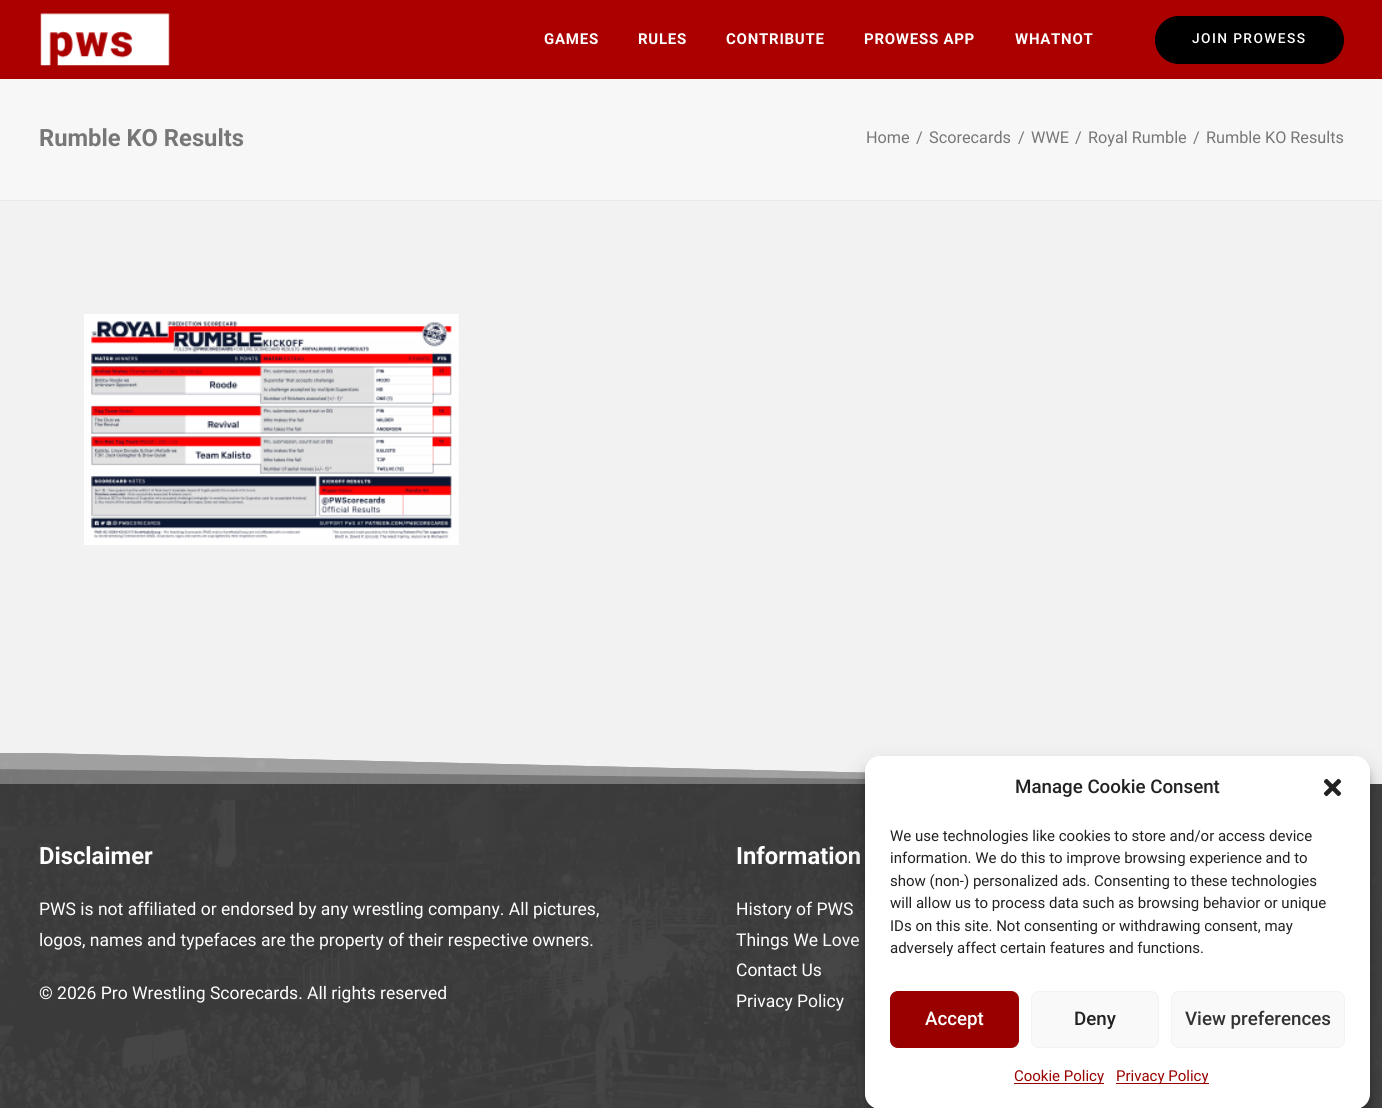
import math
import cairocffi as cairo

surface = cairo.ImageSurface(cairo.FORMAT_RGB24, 1382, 1108)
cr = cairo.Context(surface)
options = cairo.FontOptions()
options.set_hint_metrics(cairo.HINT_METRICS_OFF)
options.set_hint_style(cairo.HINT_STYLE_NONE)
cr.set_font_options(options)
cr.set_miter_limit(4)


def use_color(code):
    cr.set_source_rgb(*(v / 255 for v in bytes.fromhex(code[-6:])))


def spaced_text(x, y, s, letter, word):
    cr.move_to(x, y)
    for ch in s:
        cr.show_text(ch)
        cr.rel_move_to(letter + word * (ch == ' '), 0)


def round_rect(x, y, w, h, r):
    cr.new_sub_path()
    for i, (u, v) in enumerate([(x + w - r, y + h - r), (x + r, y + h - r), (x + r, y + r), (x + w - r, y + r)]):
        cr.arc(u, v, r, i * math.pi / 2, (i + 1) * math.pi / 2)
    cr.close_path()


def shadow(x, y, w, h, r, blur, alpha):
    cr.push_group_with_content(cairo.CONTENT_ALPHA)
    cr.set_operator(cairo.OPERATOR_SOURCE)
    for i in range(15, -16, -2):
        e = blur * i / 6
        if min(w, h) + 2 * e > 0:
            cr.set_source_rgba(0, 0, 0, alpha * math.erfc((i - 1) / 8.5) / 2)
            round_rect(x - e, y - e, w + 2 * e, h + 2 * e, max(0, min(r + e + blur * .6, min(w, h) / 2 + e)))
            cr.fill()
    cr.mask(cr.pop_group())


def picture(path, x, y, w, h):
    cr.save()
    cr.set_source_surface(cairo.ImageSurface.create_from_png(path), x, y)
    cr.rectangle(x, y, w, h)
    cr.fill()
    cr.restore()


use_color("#f3f2f2")
cr.paint()
use_color("#aa0000")
cr.rectangle(0, 0, 1382, 79)
cr.fill()
picture("img1.png", 40, 13, 130, 53)
cr.select_font_face("Roboto", cairo.FONT_SLANT_NORMAL, cairo.FONT_WEIGHT_BOLD)
cr.set_font_size(15)
use_color("#ffffff")
spaced_text(544, 44, "GAMES", 0.75, 0)
spaced_text(638, 44, "RULES", 0.75, 0)
spaced_text(726, 44, "CONTRIBUTE", 0.75, 0)
spaced_text(864, 44, "PROWESS APP", 0.75, 0)
spaced_text(1015, 44, "WHATNOT", 0.75, 0)
use_color("#000000")
round_rect(1155.5, 16.5, 188, 47, 23.5)
cr.fill_preserve()
cr.set_line_width(1)
cr.stroke()
cr.select_font_face("Roboto Medium")
cr.set_font_size(13.75)
use_color("#ffffff")
spaced_text(1192, 43, "JOIN PROWESS", 1.4, 0)
use_color("#f7f7f7")
cr.rectangle(0, 79, 1382, 121)
cr.fill()
use_color("#eaeaea")
cr.rectangle(0, 200, 1382, 1)
cr.fill()
cr.select_font_face("Roboto", cairo.FONT_SLANT_NORMAL, cairo.FONT_WEIGHT_BOLD)
cr.set_font_size(23.75)
use_color("#777777")
cr.move_to(39, 146)
cr.show_text("Rumble KO Results")
cr.select_font_face("Roboto")
cr.set_font_size(16.25)
cr.move_to(866, 143)
cr.show_text("Home")
cr.move_to(916, 143)
cr.show_text("/")
cr.move_to(929, 143)
cr.show_text("Scorecards")
cr.move_to(1018, 143)
cr.show_text("/")
cr.move_to(1031, 143)
cr.show_text("WWE")
cr.move_to(1075, 143)
cr.show_text("/")
cr.move_to(1088, 143)
cr.show_text("Royal Rumble")
cr.move_to(1193, 143)
cr.show_text("/")
cr.move_to(1206, 143)
cr.show_text("Rumble KO Results")
picture("img2.png", 84, 314, 375, 231)
picture("img3.png", 0, 753, 1382, 355)
cr.save()
cr.rectangle(0, 751, 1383, 33)
cr.clip()
use_color("#f3f2f2")
cr.new_path()
cr.move_to(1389, 752)
cr.line_to(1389, 785)
cr.line_to(-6, 752)
cr.close_path()
cr.fill()
cr.set_source_rgba(0.953, 0.949, 0.949, 0.33)
cr.new_path()
cr.move_to(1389, 785)
cr.line_to(-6, 785)
cr.line_to(-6, 752)
cr.fill()
cr.new_path()
cr.move_to(-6, 769)
cr.line_to(-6, 752)
cr.line_to(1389, 785)
cr.close_path()
cr.fill()
cr.restore()
cr.select_font_face("Roboto", cairo.FONT_SLANT_NORMAL, cairo.FONT_WEIGHT_BOLD)
cr.set_font_size(23.75)
use_color("#ffffff")
cr.move_to(39, 864)
cr.show_text("Disclaimer")
cr.select_font_face("Roboto")
cr.set_font_size(17.5)
cr.move_to(39, 915)
cr.show_text("PWS is not affiliated or endorsed by any wrestling company. All pictures,")
cr.move_to(39, 946)
cr.show_text("logos, names and typefaces are the property of their respective owners.")
cr.move_to(39, 999)
cr.show_text("© 2026 Pro Wrestling Scorecards. All rights reserved")
cr.select_font_face("Roboto", cairo.FONT_SLANT_NORMAL, cairo.FONT_WEIGHT_BOLD)
cr.set_font_size(23.75)
cr.move_to(736, 864)
cr.show_text("Information")
cr.select_font_face("Roboto")
cr.set_font_size(17.5)
cr.move_to(736, 915)
cr.show_text("History of PWS")
cr.move_to(736, 946)
cr.show_text("Things We Love")
cr.move_to(736, 976)
cr.show_text("Contact Us")
cr.move_to(736, 1007)
cr.show_text("Privacy Policy")
use_color("#000000")
shadow(865, 764, 505, 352, 15, 4, 0.23)
shadow(865, 769, 505, 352, 15, 12.5, 0.19)
use_color("#ffffff")
round_rect(865, 756, 505, 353, 15)
cr.fill()
cr.select_font_face("Roboto Medium")
cr.set_font_size(18.75)
use_color("#222222")
cr.move_to(1015, 793)
cr.show_text("Manage Cookie Consent")
picture("img4.png", 1323, 778, 19, 19)
cr.select_font_face("Roboto")
cr.set_font_size(15)
cr.move_to(890, 841)
cr.show_text("We use technologies like cookies to store and/or access device")
cr.move_to(890, 863)
cr.show_text("information. We do this to improve browsing experience and to")
cr.move_to(890, 886)
cr.show_text("show (non-) personalized ads. Consenting to these technologies")
cr.move_to(890, 908)
cr.show_text("will allow us to process data such as browsing behavior or unique")
cr.move_to(890, 931)
cr.show_text("IDs on this site. Not consenting or withdrawing consent, may")
cr.move_to(890, 953)
cr.show_text("adversely affect certain features and functions.")
use_color("#990000")
round_rect(890.5, 991.5, 128, 56, 7.5)
cr.fill_preserve()
cr.stroke()
cr.select_font_face("Roboto Medium")
cr.set_font_size(18.75)
use_color("#ffffff")
cr.move_to(925, 1025)
cr.show_text("Accept")
use_color("#f9f9f9")
round_rect(1031.5, 991.5, 127, 56, 7.5)
cr.fill_preserve()
use_color("#f2f2f2")
cr.stroke()
use_color("#222222")
cr.move_to(1074, 1025)
cr.show_text("Deny")
use_color("#f9f9f9")
round_rect(1171.5, 991.5, 173, 56, 7.5)
cr.fill_preserve()
use_color("#f2f2f2")
cr.stroke()
use_color("#333333")
cr.move_to(1185, 1025)
cr.show_text("View preferences")
use_color("#990000")
cr.rectangle(1014, 1083, 90, 1)
cr.fill()
cr.select_font_face("Roboto")
cr.set_font_size(15)
cr.move_to(1014, 1081)
cr.show_text("Cookie Policy")
cr.rectangle(1116, 1083, 93, 1)
cr.fill()
cr.move_to(1116, 1081)
cr.show_text("Privacy Policy")
surface.write_to_png("result.png")
